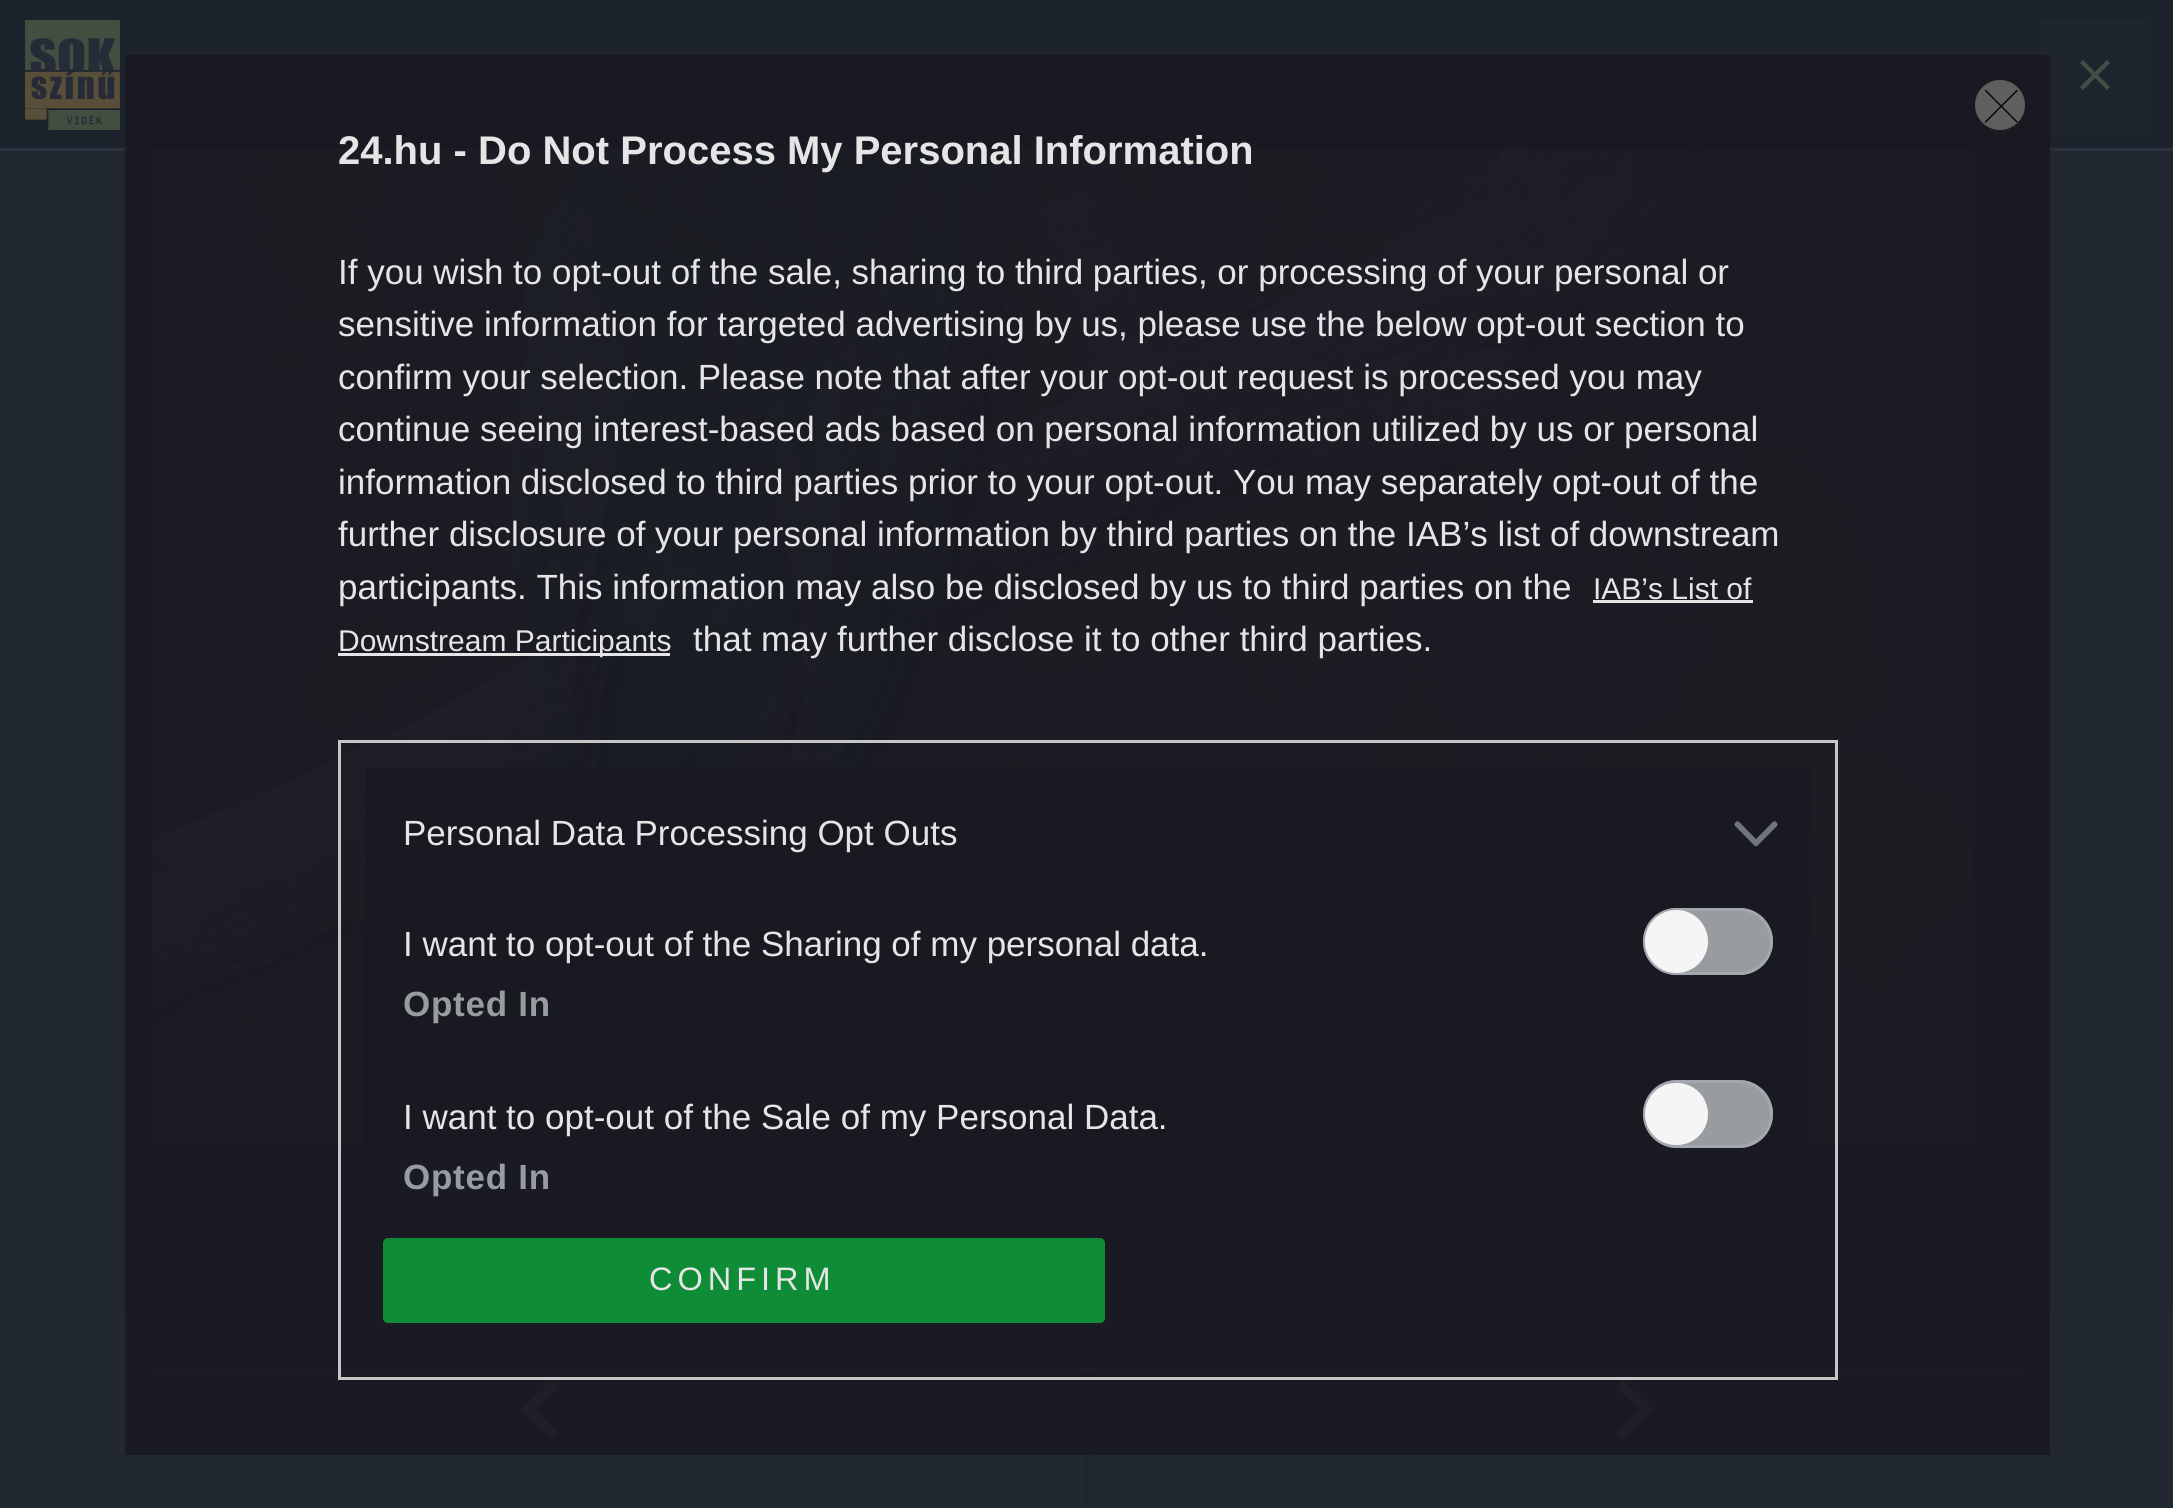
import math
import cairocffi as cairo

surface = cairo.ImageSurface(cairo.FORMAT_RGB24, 2173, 1508)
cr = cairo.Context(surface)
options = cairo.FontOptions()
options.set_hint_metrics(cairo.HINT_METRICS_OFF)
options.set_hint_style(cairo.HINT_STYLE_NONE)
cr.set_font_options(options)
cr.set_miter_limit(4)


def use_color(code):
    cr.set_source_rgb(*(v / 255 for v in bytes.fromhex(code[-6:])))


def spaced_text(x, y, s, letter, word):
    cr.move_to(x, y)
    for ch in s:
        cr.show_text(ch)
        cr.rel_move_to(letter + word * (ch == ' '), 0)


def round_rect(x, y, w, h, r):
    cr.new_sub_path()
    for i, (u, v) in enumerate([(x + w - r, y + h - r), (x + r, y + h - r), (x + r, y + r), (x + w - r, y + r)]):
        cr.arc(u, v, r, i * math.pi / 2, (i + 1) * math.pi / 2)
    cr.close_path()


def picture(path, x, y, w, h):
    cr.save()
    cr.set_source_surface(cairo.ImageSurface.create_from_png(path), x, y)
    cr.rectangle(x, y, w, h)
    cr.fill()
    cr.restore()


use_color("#20262f")
cr.paint()
use_color("#222832")
cr.rectangle(1095, 1310, 1078, 198)
cr.fill()
cr.rectangle(0, 1310, 1083, 198)
cr.fill()
use_color("#1d232c")
cr.rectangle(0, 0, 2173, 148)
cr.fill()
use_color("#2a303c")
cr.rectangle(0, 148, 2173, 3)
cr.fill()
picture("img1.png", 25, 20, 95, 110)
use_color("#1f252f")
cr.rectangle(2040, 20, 110, 110)
cr.fill()
picture("img2.png", 2080, 60, 30, 30)
picture("img3.png", 152, 151, 1821, 994)
use_color("#595f67")
cr.new_path()
cr.move_to(552, 1380)
cr.line_to(559, 1387)
cr.line_to(535, 1410)
cr.line_to(559, 1433)
cr.line_to(552, 1440)
cr.line_to(521, 1410)
cr.close_path()
cr.fill()
cr.new_path()
cr.move_to(1623, 1440)
cr.line_to(1616, 1433)
cr.line_to(1640, 1410)
cr.line_to(1616, 1387)
cr.line_to(1623, 1380)
cr.line_to(1654, 1410)
cr.close_path()
cr.fill()
use_color("#3d434d")
cr.rectangle(1083, 1368, 12, 3)
cr.fill()
use_color("#383e49")
cr.rectangle(1095, 1368, 928, 3)
cr.fill()
cr.rectangle(153, 1368, 930, 3)
cr.fill()
cr.set_source_rgba(0.098, 0.098, 0.133, 0.9)
cr.rectangle(125, 55, 1925, 1400)
cr.fill()
use_color("#5f5f60")
cr.arc(2000, 105, 25, 0, 2 * math.pi)
cr.fill()
cr.save()
cr.rectangle(1985, 90, 33, 33)
cr.clip()
cr.new_path()
cr.move_to(1985.5, 90.5)
cr.line_to(2017, 122)
cr.move_to(2017, 90.5)
cr.line_to(1985.5, 122)
use_color("#030404")
cr.set_line_width(1.4)
cr.set_line_cap(cairo.LINE_CAP_ROUND)
cr.set_line_join(cairo.LINE_JOIN_ROUND)
cr.stroke()
cr.restore()
cr.select_font_face("Liberation Sans", cairo.FONT_SLANT_NORMAL, cairo.FONT_WEIGHT_BOLD)
cr.set_font_size(40)
use_color("#e5e5e5")
cr.move_to(338, 164)
cr.show_text("24.hu - Do Not Process My Personal Information")
cr.select_font_face("Liberation Sans")
cr.set_font_size(35)
cr.move_to(338, 284)
cr.show_text("If you wish to opt-out of the sale, sharing to third parties, or processing of your personal or")
cr.move_to(338, 336)
cr.show_text("sensitive information for targeted advertising by us, please use the below opt-out section to")
cr.move_to(338, 389)
cr.show_text("confirm your selection. Please note that after your opt-out request is processed you may")
cr.move_to(338, 441)
cr.show_text("continue seeing interest-based ads based on personal information utilized by us or personal")
cr.move_to(338, 494)
cr.show_text("information disclosed to third parties prior to your opt-out. You may separately opt-out of the")
cr.move_to(338, 546)
cr.show_text("further disclosure of your personal information by third parties on the IAB’s list of downstream")
cr.move_to(338, 599)
cr.show_text("participants. This information may also be disclosed by us to third parties on the")
cr.set_font_size(30)
cr.move_to(1593, 599)
cr.show_text("IAB’s List of")
cr.rectangle(1593, 600, 160, 3)
cr.fill()
cr.set_source_rgba(0.984, 0.984, 0.984, 0.9)
cr.rectangle(338, 653, 332, 3)
cr.fill()
use_color("#e5e5e5")
cr.move_to(338, 651)
cr.show_text("Downstream Participants")
cr.set_font_size(35)
cr.move_to(693, 651)
cr.show_text("that may further disclose it to other third parties.")
cr.rectangle(339.5, 741.5, 1497, 637)
cr.set_source_rgba(0.847, 0.847, 0.847, 0.9)
cr.set_line_width(3)
cr.stroke()
cr.set_source_rgba(0.098, 0.098, 0.133, 0.9)
cr.rectangle(365, 768, 1445, 376)
cr.fill()
use_color("#e5e5e5")
cr.move_to(403, 845)
cr.show_text("Personal Data Processing Opt Outs")
picture("img4.png", 1734, 821, 44, 26)
cr.move_to(403, 956)
cr.show_text("I want to opt-out of the Sharing of my personal data.")
use_color("#989ba0")
round_rect(1643, 908, 130, 67, 33.5)
cr.fill()
round_rect(1644.5, 909.5, 127, 64, 32)
cr.set_source_rgba(0.651, 0.663, 0.682, 0.9)
cr.stroke()
cr.set_source_rgba(1, 1, 1, 0.9)
cr.arc(1676.5, 941.5, 31.5, 0, 2 * math.pi)
cr.fill()
cr.select_font_face("Liberation Sans", cairo.FONT_SLANT_NORMAL, cairo.FONT_WEIGHT_BOLD)
use_color("#989ba0")
spaced_text(403, 1016, "Opted In", 0.75, 0)
cr.select_font_face("Liberation Sans")
use_color("#e5e5e5")
cr.move_to(403, 1129)
cr.show_text("I want to opt-out of the Sale of my Personal Data.")
use_color("#989ba0")
round_rect(1643, 1080, 130, 68, 34)
cr.fill()
round_rect(1644.5, 1081.5, 127, 65, 32.5)
cr.set_source_rgba(0.651, 0.663, 0.682, 0.9)
cr.stroke()
cr.set_source_rgba(1, 1, 1, 0.9)
round_rect(1645, 1083, 63, 62, 31)
cr.fill()
cr.select_font_face("Liberation Sans", cairo.FONT_SLANT_NORMAL, cairo.FONT_WEIGHT_BOLD)
use_color("#989ba0")
spaced_text(403, 1189, "Opted In", 0.75, 0)
cr.set_source_rgba(0.055, 0.596, 0.224, 0.9)
round_rect(383, 1238, 722, 85, 5)
cr.fill()
cr.select_font_face("Liberation Sans")
cr.set_font_size(32.5)
use_color("#e5e5e5")
spaced_text(649, 1290, "CONFIRM", 5, 0)
surface.write_to_png("result.png")
